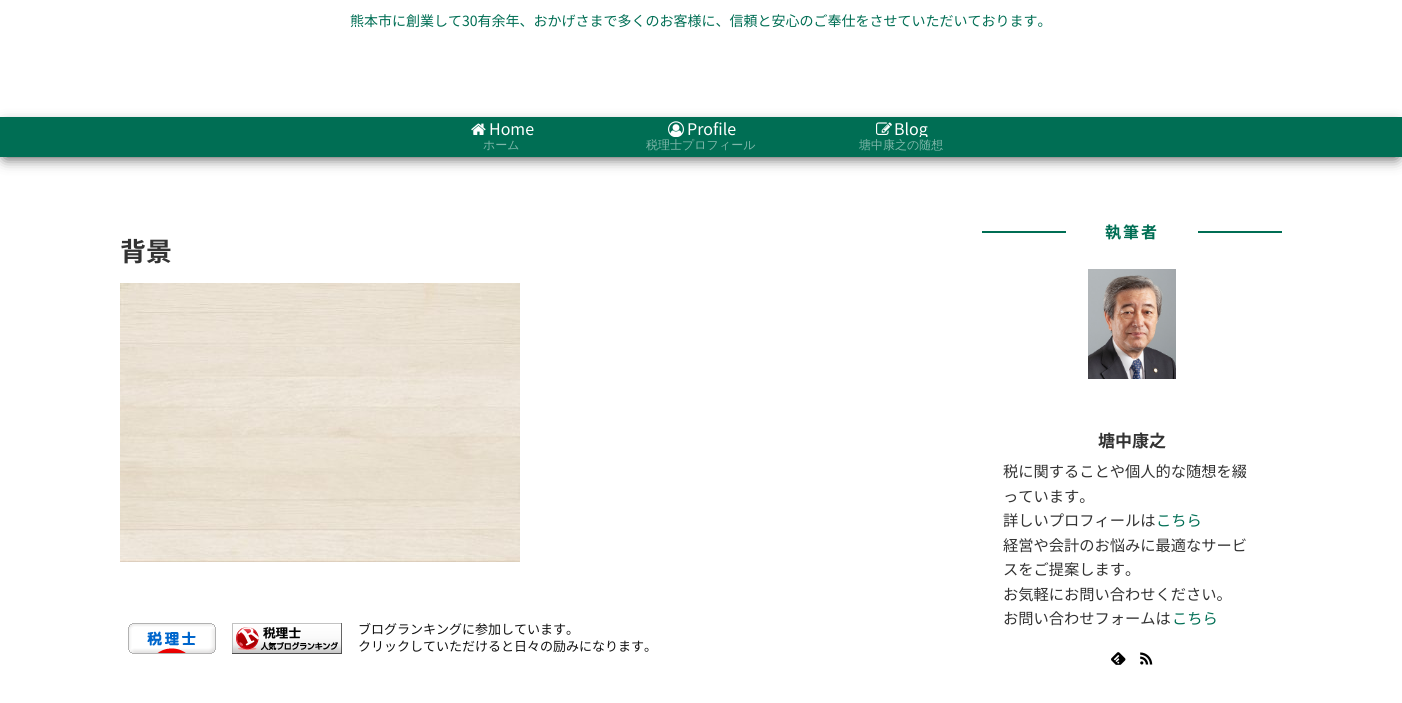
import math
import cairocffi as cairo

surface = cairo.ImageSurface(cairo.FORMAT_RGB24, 1402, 703)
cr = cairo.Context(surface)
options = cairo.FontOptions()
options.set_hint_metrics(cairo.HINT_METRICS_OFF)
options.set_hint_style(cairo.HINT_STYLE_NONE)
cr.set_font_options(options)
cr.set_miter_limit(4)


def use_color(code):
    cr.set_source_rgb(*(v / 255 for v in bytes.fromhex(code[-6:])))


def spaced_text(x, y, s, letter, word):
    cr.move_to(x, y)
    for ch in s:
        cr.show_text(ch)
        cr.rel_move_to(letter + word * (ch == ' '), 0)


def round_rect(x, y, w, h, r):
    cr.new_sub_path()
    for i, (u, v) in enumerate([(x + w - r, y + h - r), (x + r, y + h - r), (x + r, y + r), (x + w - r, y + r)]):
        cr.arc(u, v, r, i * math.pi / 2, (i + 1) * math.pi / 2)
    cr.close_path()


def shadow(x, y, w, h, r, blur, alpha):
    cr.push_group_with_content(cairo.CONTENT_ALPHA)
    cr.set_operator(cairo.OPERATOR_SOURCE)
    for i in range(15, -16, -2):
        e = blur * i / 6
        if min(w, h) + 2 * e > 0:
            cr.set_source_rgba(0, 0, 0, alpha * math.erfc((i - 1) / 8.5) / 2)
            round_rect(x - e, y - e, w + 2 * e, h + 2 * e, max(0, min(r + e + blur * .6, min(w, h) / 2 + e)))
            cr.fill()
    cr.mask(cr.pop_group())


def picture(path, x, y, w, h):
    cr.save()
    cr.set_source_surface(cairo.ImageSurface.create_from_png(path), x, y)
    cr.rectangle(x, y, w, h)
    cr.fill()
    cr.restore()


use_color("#ffffff")
cr.paint()
cr.select_font_face("Noto Sans JP")
cr.set_font_size(14)
use_color("#006e54")
cr.move_to(350, 26)
cr.show_text("熊本市に創業して30有余年、おかげさまで多くのお客様に、信頼と安心のご奉仕をさせていただいております。")
use_color("#000000")
shadow(5, 127, 1392, 30, 0, 7.5, 0.8)
use_color("#006e54")
cr.rectangle(0, 117, 1402, 40)
cr.fill()
picture("img1.png", 471, 123, 15, 12)
cr.set_font_size(16)
use_color("#ffffff")
cr.move_to(489, 135)
cr.show_text("Home")
cr.select_font_face("WenQuanYi Zen Hei Medium")
cr.set_font_size(12)
use_color("#80b7aa")
cr.move_to(483, 149)
cr.show_text("ホーム")
picture("img2.png", 668, 121, 16, 16)
cr.select_font_face("Noto Sans JP")
cr.set_font_size(16)
use_color("#ffffff")
cr.move_to(687, 135)
cr.show_text("Profile")
cr.select_font_face("WenQuanYi Zen Hei Medium")
cr.set_font_size(12)
use_color("#80b7aa")
cr.move_to(646, 149)
cr.show_text("税理士プロフィール")
picture("img3.png", 876, 122, 16, 13)
cr.save()
cr.rectangle(801, 120, 200, 17)
cr.clip()
cr.select_font_face("Noto Sans JP")
cr.set_font_size(16)
use_color("#ffffff")
cr.move_to(894, 135)
cr.show_text("Blog")
cr.restore()
cr.move_to(859, 149)
cr.show_text("塘中康之の随想")
cr.select_font_face("Noto Sans JP", cairo.FONT_SLANT_NORMAL, cairo.FONT_WEIGHT_BOLD)
cr.set_font_size(26)
use_color("#333333")
cr.move_to(120, 261)
cr.show_text("背景")
picture("img4.png", 120, 283, 400, 279)
picture("img5.png", 128, 623, 88, 31)
picture("img6.png", 232, 623, 110, 31)
cr.select_font_face("Noto Sans JP")
cr.set_font_size(13)
use_color("#111111")
cr.move_to(358, 634)
cr.show_text("ブログランキングに参加しています。")
cr.move_to(358, 651)
cr.show_text("クリックしていただけると日々の励みになります。")
use_color("#006e54")
cr.rectangle(982, 231, 84, 2)
cr.fill()
cr.select_font_face("Noto Sans JP", cairo.FONT_SLANT_NORMAL, cairo.FONT_WEIGHT_BOLD)
cr.set_font_size(16)
spaced_text(1105, 238, "執筆者", 2, 0)
cr.rectangle(1198, 231, 84, 2)
cr.fill()
picture("img7.png", 1088, 269, 88, 110)
cr.set_font_size(17)
use_color("#333333")
cr.move_to(1098, 447)
cr.show_text("塘中康之")
cr.select_font_face("Noto Sans JP")
cr.set_font_size(15.25)
cr.move_to(1003, 477)
cr.show_text("税に関することや個人的な随想を綴")
cr.move_to(1003, 502)
cr.show_text("っています。")
cr.move_to(1003, 526)
cr.show_text("詳しいプロフィールは")
use_color("#006e54")
cr.move_to(1156, 526)
cr.show_text("こちら")
use_color("#333333")
cr.move_to(1003, 551)
cr.show_text("経営や会計のお悩みに最適なサービ")
cr.move_to(1003, 575)
cr.show_text("スをご提案します。")
cr.move_to(1003, 600)
cr.show_text("お気軽にお問い合わせください。")
cr.move_to(1003, 624)
cr.show_text("お問い合わせフォームは")
use_color("#006e54")
cr.move_to(1172, 624)
cr.show_text("こちら")
picture("img8.png", 1111, 652, 15, 13)
picture("img9.png", 1140, 652, 13, 13)
surface.write_to_png("result.png")
